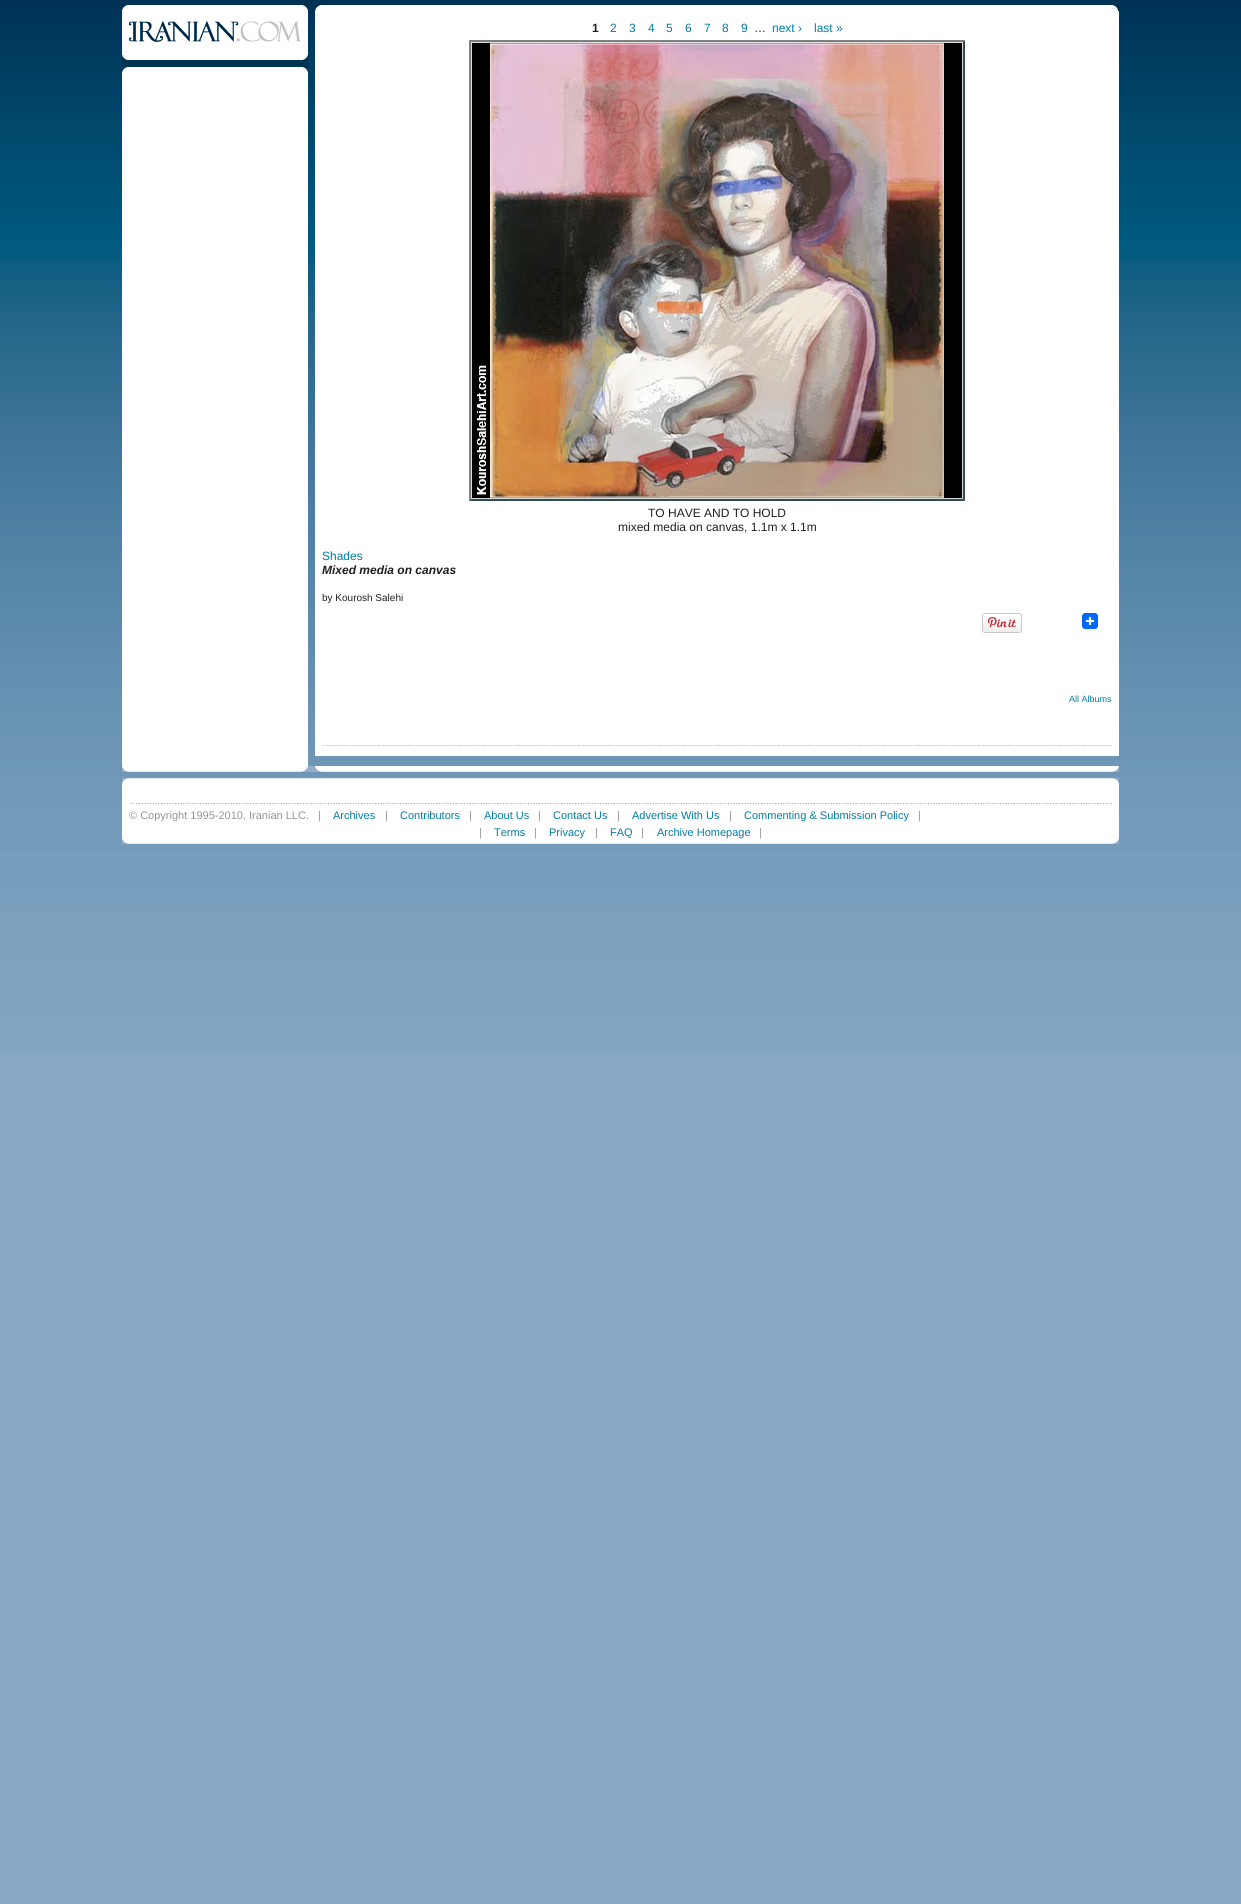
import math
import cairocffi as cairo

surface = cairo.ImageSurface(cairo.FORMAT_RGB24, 1241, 1904)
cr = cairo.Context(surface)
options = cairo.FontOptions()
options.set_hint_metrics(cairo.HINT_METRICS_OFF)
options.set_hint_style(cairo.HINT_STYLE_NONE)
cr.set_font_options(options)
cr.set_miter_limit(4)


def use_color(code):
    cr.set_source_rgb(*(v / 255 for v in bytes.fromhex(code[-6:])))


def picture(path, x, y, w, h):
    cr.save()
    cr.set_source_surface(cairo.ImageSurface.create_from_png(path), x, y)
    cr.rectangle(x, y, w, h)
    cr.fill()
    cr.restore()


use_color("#86a8c5")
cr.paint()
picture("img1.png", 0, 0, 1241, 1053)
use_color("#ffffff")
cr.rectangle(122, 72, 186, 694)
cr.fill()
picture("img2.png", 122, 5, 186, 62)
picture("img3.png", 122, 67, 186, 5)
cr.rectangle(315, 11, 804, 745)
cr.fill()
picture("img4.png", 315, 5, 804, 6)
picture("img5.png", 322, 745, 790, 1)
cr.select_font_face("Liberation Sans", cairo.FONT_SLANT_NORMAL, cairo.FONT_WEIGHT_BOLD)
cr.set_font_size(12)
use_color("#221e1f")
cr.move_to(592, 32)
cr.show_text("1")
cr.select_font_face("Liberation Sans")
use_color("#007da6")
cr.move_to(610, 32)
cr.show_text("2")
cr.move_to(629, 32)
cr.show_text("3")
cr.move_to(648, 32)
cr.show_text("4")
cr.move_to(666, 32)
cr.show_text("5")
cr.move_to(685, 32)
cr.show_text("6")
cr.move_to(704, 32)
cr.show_text("7")
cr.move_to(722, 32)
cr.show_text("8")
cr.move_to(741, 32)
cr.show_text("9")
use_color("#221e1f")
cr.move_to(754, 32)
cr.show_text("…")
use_color("#007da6")
cr.move_to(772, 32)
cr.show_text("next ›")
cr.move_to(814, 32)
cr.show_text("last »")
use_color("#dcdcdc")
cr.rectangle(469, 40, 496, 461)
cr.fill()
use_color("#808080")
cr.new_path()
cr.move_to(469, 40)
cr.line_to(965, 40)
cr.line_to(963, 42)
cr.line_to(471, 42)
cr.close_path()
cr.fill()
use_color("#2f4f4f")
cr.new_path()
cr.move_to(965, 40)
cr.line_to(965, 501)
cr.line_to(963, 499)
cr.line_to(963, 42)
cr.close_path()
cr.fill()
cr.new_path()
cr.move_to(965, 501)
cr.line_to(469, 501)
cr.line_to(471, 499)
cr.line_to(963, 499)
cr.close_path()
cr.fill()
use_color("#808080")
cr.new_path()
cr.move_to(469, 501)
cr.line_to(469, 40)
cr.line_to(471, 42)
cr.line_to(471, 499)
cr.close_path()
cr.fill()
picture("img6.png", 472, 43, 490, 455)
use_color("#221e1f")
cr.move_to(648, 517)
cr.show_text("TO HAVE AND TO HOLD")
cr.move_to(618, 531)
cr.show_text("mixed media on canvas, 1.1m x 1.1m")
use_color("#007da6")
cr.move_to(322, 560)
cr.show_text("Shades")
cr.select_font_face("Liberation Sans", cairo.FONT_SLANT_ITALIC, cairo.FONT_WEIGHT_BOLD)
use_color("#221e1f")
cr.move_to(322, 574)
cr.show_text("Mixed media on canvas")
cr.select_font_face("Liberation Sans")
cr.set_font_size(10)
cr.move_to(322, 601)
cr.show_text("by Kourosh Salehi")
picture("img7.png", 982, 613, 40, 20)
picture("img8.png", 1082, 613, 16, 16)
cr.set_font_size(9)
use_color("#007da6")
cr.move_to(1069, 702)
cr.show_text("All Albums")
picture("img9.png", 122, 766, 997, 6)
use_color("#ffffff")
cr.rectangle(122, 784, 997, 54)
cr.fill()
picture("img10.png", 122, 778, 997, 6)
picture("img11.png", 130, 803, 982, 1)
cr.set_font_size(11)
use_color("#939698")
cr.move_to(129, 819)
cr.show_text("© Copyright 1995-2010, Iranian LLC.")
cr.move_to(318, 819)
cr.show_text("|")
use_color("#007da6")
cr.move_to(333, 819)
cr.show_text("Archives")
use_color("#939698")
cr.move_to(385, 819)
cr.show_text("|")
use_color("#007da6")
cr.move_to(400, 819)
cr.show_text("Contributors")
use_color("#939698")
cr.move_to(469, 819)
cr.show_text("|")
use_color("#007da6")
cr.move_to(484, 819)
cr.show_text("About Us")
use_color("#939698")
cr.move_to(538, 819)
cr.show_text("|")
use_color("#007da6")
cr.move_to(553, 819)
cr.show_text("Contact Us")
use_color("#939698")
cr.move_to(617, 819)
cr.show_text("|")
use_color("#007da6")
cr.move_to(632, 819)
cr.show_text("Advertise With Us")
use_color("#939698")
cr.move_to(729, 819)
cr.show_text("|")
use_color("#007da6")
cr.move_to(744, 819)
cr.show_text("Commenting & Submission Policy")
use_color("#939698")
cr.move_to(918, 819)
cr.show_text("|")
picture("img12.png", 122, 838, 997, 6)
cr.move_to(479, 836)
cr.show_text("|")
use_color("#007da6")
cr.move_to(494, 836)
cr.show_text("Terms")
use_color("#939698")
cr.move_to(534, 836)
cr.show_text("|")
use_color("#007da6")
cr.move_to(549, 836)
cr.show_text("Privacy")
use_color("#939698")
cr.move_to(595, 836)
cr.show_text("|")
use_color("#007da6")
cr.move_to(610, 836)
cr.show_text("FAQ")
use_color("#939698")
cr.move_to(641, 836)
cr.show_text("|")
use_color("#007da6")
cr.move_to(657, 836)
cr.show_text("Archive Homepage")
use_color("#939698")
cr.move_to(759, 836)
cr.show_text("|")
surface.write_to_png("result.png")
